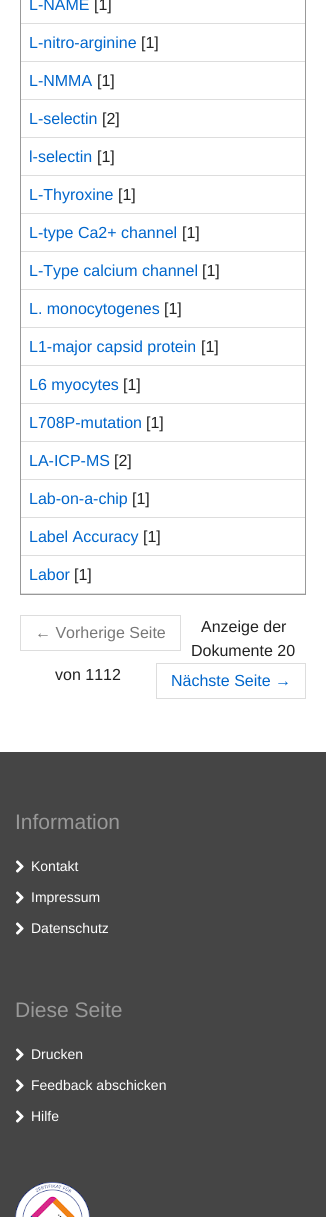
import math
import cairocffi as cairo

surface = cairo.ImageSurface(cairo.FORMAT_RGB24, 326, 1217)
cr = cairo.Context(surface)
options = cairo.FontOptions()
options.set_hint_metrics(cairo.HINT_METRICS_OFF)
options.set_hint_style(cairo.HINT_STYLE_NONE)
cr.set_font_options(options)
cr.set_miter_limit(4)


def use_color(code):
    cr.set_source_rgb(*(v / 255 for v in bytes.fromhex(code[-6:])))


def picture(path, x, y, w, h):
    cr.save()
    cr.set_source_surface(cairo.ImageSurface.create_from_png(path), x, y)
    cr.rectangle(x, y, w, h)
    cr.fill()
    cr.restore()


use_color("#ffffff")
cr.paint()
cr.rectangle(20.5, -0.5, 285, 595)
use_color("#999999")
cr.set_line_width(1)
cr.stroke()
use_color("#dddddd")
cr.rectangle(21, 593, 284, 1)
cr.fill()
cr.select_font_face("Liberation Sans")
cr.set_font_size(16)
use_color("#0066cc")
cr.move_to(29, 10)
cr.show_text("L-NAME")
use_color("#222222")
cr.move_to(94, 10)
cr.show_text("[1]")
use_color("#dddddd")
cr.rectangle(21, 23, 284, 1)
cr.fill()
use_color("#0066cc")
cr.move_to(29, 48)
cr.show_text("L-nitro-arginine")
use_color("#222222")
cr.move_to(141, 48)
cr.show_text("[1]")
use_color("#dddddd")
cr.rectangle(21, 61, 284, 1)
cr.fill()
use_color("#0066cc")
cr.move_to(29, 86)
cr.show_text("L-NMMA")
use_color("#222222")
cr.move_to(97, 86)
cr.show_text("[1]")
use_color("#dddddd")
cr.rectangle(21, 99, 284, 1)
cr.fill()
use_color("#0066cc")
cr.move_to(29, 124)
cr.show_text("L-selectin")
use_color("#222222")
cr.move_to(102, 124)
cr.show_text("[2]")
use_color("#dddddd")
cr.rectangle(21, 137, 284, 1)
cr.fill()
use_color("#0066cc")
cr.move_to(29, 162)
cr.show_text("l-selectin")
use_color("#222222")
cr.move_to(97, 162)
cr.show_text("[1]")
use_color("#dddddd")
cr.rectangle(21, 175, 284, 1)
cr.fill()
use_color("#0066cc")
cr.move_to(29, 200)
cr.show_text("L-Thyroxine")
use_color("#222222")
cr.move_to(118, 200)
cr.show_text("[1]")
use_color("#dddddd")
cr.rectangle(21, 213, 284, 1)
cr.fill()
use_color("#0066cc")
cr.move_to(29, 238)
cr.show_text("L-type Ca2+ channel")
use_color("#222222")
cr.move_to(182, 238)
cr.show_text("[1]")
use_color("#dddddd")
cr.rectangle(21, 251, 284, 1)
cr.fill()
use_color("#0066cc")
cr.move_to(29, 276)
cr.show_text("L-Type calcium channel")
use_color("#222222")
cr.move_to(202, 276)
cr.show_text("[1]")
use_color("#dddddd")
cr.rectangle(21, 289, 284, 1)
cr.fill()
use_color("#0066cc")
cr.move_to(29, 314)
cr.show_text("L. monocytogenes")
use_color("#222222")
cr.move_to(164, 314)
cr.show_text("[1]")
use_color("#dddddd")
cr.rectangle(21, 327, 284, 1)
cr.fill()
use_color("#0066cc")
cr.move_to(29, 352)
cr.show_text("L1-major capsid protein")
use_color("#222222")
cr.move_to(201, 352)
cr.show_text("[1]")
use_color("#dddddd")
cr.rectangle(21, 365, 284, 1)
cr.fill()
use_color("#0066cc")
cr.move_to(29, 390)
cr.show_text("L6 myocytes")
use_color("#222222")
cr.move_to(123, 390)
cr.show_text("[1]")
use_color("#dddddd")
cr.rectangle(21, 403, 284, 1)
cr.fill()
use_color("#0066cc")
cr.move_to(29, 428)
cr.show_text("L708P-mutation")
use_color("#222222")
cr.move_to(146, 428)
cr.show_text("[1]")
use_color("#dddddd")
cr.rectangle(21, 441, 284, 1)
cr.fill()
use_color("#0066cc")
cr.move_to(29, 466)
cr.show_text("LA-ICP-MS")
use_color("#222222")
cr.move_to(114, 466)
cr.show_text("[2]")
use_color("#dddddd")
cr.rectangle(21, 479, 284, 1)
cr.fill()
use_color("#0066cc")
cr.move_to(29, 504)
cr.show_text("Lab-on-a-chip")
use_color("#222222")
cr.move_to(132, 504)
cr.show_text("[1]")
use_color("#dddddd")
cr.rectangle(21, 517, 284, 1)
cr.fill()
use_color("#0066cc")
cr.move_to(29, 542)
cr.show_text("Label Accuracy")
use_color("#222222")
cr.move_to(143, 542)
cr.show_text("[1]")
use_color("#dddddd")
cr.rectangle(21, 555, 284, 1)
cr.fill()
use_color("#0066cc")
cr.move_to(29, 580)
cr.show_text("Labor")
use_color("#222222")
cr.move_to(74, 580)
cr.show_text("[1]")
cr.rectangle(20.5, 615.5, 160, 35)
use_color("#dddddd")
cr.stroke()
use_color("#777777")
cr.move_to(35, 638)
cr.show_text("← Vorherige Seite")
use_color("#222222")
cr.move_to(201, 632)
cr.show_text("Anzeige der")
cr.move_to(191, 656)
cr.show_text("Dokumente 20")
cr.move_to(55, 680)
cr.show_text("von 1112")
cr.rectangle(156.5, 663.5, 149, 35)
use_color("#dddddd")
cr.stroke()
use_color("#0066cc")
cr.move_to(171, 686)
cr.show_text("Nächste Seite →")
use_color("#454545")
cr.rectangle(0, 752, 326, 465)
cr.fill()
cr.set_font_size(21)
use_color("#999999")
cr.move_to(15, 829)
cr.show_text("Information")
picture("img1.png", 16, 860, 8, 13)
cr.set_font_size(14)
use_color("#ffffff")
cr.move_to(31, 871)
cr.show_text("Kontakt")
picture("img1.png", 16, 891, 8, 13)
cr.move_to(31, 902)
cr.show_text("Impressum")
picture("img1.png", 16, 922, 8, 13)
cr.move_to(31, 933)
cr.show_text("Datenschutz")
cr.set_font_size(21)
use_color("#999999")
cr.move_to(15, 1017)
cr.show_text("Diese Seite")
picture("img1.png", 16, 1048, 8, 13)
cr.set_font_size(14)
use_color("#ffffff")
cr.move_to(31, 1059)
cr.show_text("Drucken")
picture("img1.png", 16, 1079, 8, 13)
cr.move_to(31, 1090)
cr.show_text("Feedback abschicken")
picture("img1.png", 16, 1110, 8, 13)
cr.move_to(31, 1121)
cr.show_text("Hilfe")
picture("img2.png", 15, 1182, 75, 35)
surface.write_to_png("result.png")
